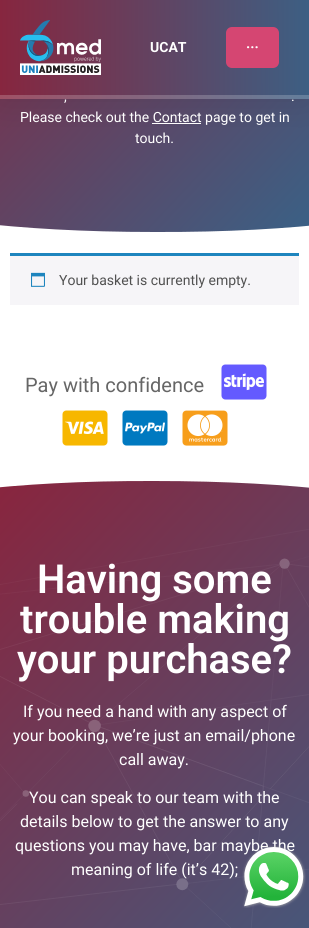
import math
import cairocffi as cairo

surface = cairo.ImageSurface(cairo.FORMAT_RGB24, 309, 928)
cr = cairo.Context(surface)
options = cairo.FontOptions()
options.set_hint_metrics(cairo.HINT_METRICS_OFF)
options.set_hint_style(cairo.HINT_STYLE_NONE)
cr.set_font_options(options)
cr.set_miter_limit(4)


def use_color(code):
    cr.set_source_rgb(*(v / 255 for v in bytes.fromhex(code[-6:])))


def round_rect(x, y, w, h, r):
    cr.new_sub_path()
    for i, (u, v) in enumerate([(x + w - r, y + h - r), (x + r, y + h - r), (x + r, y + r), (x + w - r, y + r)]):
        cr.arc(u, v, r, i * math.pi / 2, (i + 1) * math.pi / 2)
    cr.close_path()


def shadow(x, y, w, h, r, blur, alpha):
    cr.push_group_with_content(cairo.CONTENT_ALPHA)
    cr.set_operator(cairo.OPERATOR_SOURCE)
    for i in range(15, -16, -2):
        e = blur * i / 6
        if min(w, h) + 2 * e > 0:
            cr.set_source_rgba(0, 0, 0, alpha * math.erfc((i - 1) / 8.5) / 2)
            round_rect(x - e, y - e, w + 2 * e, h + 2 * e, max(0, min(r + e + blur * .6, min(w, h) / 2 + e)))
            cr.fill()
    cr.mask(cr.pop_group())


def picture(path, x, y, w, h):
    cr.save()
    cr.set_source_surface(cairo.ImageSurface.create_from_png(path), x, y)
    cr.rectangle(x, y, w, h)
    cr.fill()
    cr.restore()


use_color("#ffffff")
cr.paint()
gradient = cairo.LinearGradient(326, 216, -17, -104)
gradient.add_color_stop_rgba(0, 0.227, 0.38, 0.525, 1)
gradient.add_color_stop_rgba(1, 0.537, 0.145, 0.243, 1)
cr.set_source(gradient)
cr.rectangle(0, 99, 309, 133)
cr.fill()
use_color("#ffffff")
cr.rectangle(152, 123, 49, 1)
cr.fill()
use_color("#000000")
shadow(0, 0, 309, 99, 0, 19, 0.1)
gradient = cairo.LinearGradient(309, 47, 0, 48)
gradient.add_color_stop_rgba(0, 0.239, 0.373, 0.514, 1)
gradient.add_color_stop_rgba(1, 0.529, 0.149, 0.247, 1)
cr.set_source(gradient)
cr.rectangle(0, 0, 309, 99)
cr.fill()
cr.set_source_rgba(1, 1, 1, 0.2)
cr.rectangle(0, 95, 309, 4)
cr.fill()
picture("img1.png", 20, 20, 81, 55)
cr.select_font_face("Roboto", cairo.FONT_SLANT_NORMAL, cairo.FONT_WEIGHT_BOLD)
cr.set_font_size(14)
use_color("#ffffff")
cr.move_to(150, 52)
cr.show_text("UCAT")
use_color("#d54672")
round_rect(226, 27, 53, 41, 6)
cr.fill()
use_color("#ffffff")
cr.move_to(246, 52)
cr.show_text("···")
cr.select_font_face("Roboto")
cr.move_to(64, 101)
cr.show_text(",")
cr.move_to(291, 101)
cr.show_text(".")
cr.move_to(20, 122)
cr.show_text("Please check out the Contact page to get in")
cr.move_to(135, 143)
cr.show_text("touch.")
cr.new_path()
cr.move_to(155, 232)
cr.curve_to(-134, 232, -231, 172, -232, 157)
cr.line_to(-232, 234)
cr.line_to(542, 234)
cr.line_to(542, 158)
cr.curve_to(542, 172, 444, 233, 155, 232)
cr.close_path()
cr.fill()
use_color("#f6f5f8")
cr.rectangle(10, 256, 289, 49)
cr.fill()
use_color("#1e85be")
cr.rectangle(10, 253, 289, 3)
cr.fill()
picture("img2.png", 31, 272, 14, 15)
use_color("#515151")
cr.move_to(59, 285)
cr.show_text("Your basket is currently empty.")
cr.set_font_size(20)
use_color("#666666")
cr.move_to(25, 392)
cr.show_text("Pay with confidence")
picture("img3.png", 221, 364, 46, 36)
picture("img4.png", 62, 410, 46, 36)
picture("img5.png", 122, 410, 46, 36)
picture("img6.png", 182, 410, 46, 36)
gradient = cairo.LinearGradient(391, 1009, -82, 568)
gradient.add_color_stop_rgba(0, 0.227, 0.38, 0.525, 1)
gradient.add_color_stop_rgba(1, 0.537, 0.145, 0.243, 1)
cr.set_source(gradient)
cr.rectangle(0, 481, 309, 447)
cr.fill()
cr.save()
cr.rectangle(0, 479, 309, 77)
cr.clip()
use_color("#ffffff")
cr.new_path()
cr.move_to(154, 481)
cr.curve_to(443, 481, 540, 540, 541, 556)
cr.line_to(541, 478)
cr.line_to(-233, 478)
cr.line_to(-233, 555)
cr.curve_to(-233, 541, -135, 480, 154, 481)
cr.close_path()
cr.fill()
cr.restore()
cr.select_font_face("Roboto SemiBold")
cr.set_font_size(40)
use_color("#ffffff")
cr.move_to(37, 593)
cr.show_text("Having some")
cr.move_to(20, 633)
cr.show_text("trouble making")
cr.move_to(17, 673)
cr.show_text("your purchase?")
cr.select_font_face("Roboto")
cr.set_font_size(16)
cr.move_to(23, 717)
cr.show_text("If you need a hand with any aspect of")
cr.move_to(13, 741)
cr.show_text("your booking, we’re just an email/phone")
cr.move_to(119, 765)
cr.show_text("call away.")
cr.move_to(29, 803)
cr.show_text("You can speak to our team with the")
cr.move_to(20, 827)
cr.show_text("details below to get the answer to any")
cr.move_to(15, 851)
cr.show_text("questions you may have, bar maybe the")
cr.move_to(71, 875)
cr.show_text("meaning of life (it’s 42);")
picture("img7.png", 0, 529, 309, 399)
picture("img8.png", 242, 845, 64, 63)
surface.write_to_png("result.png")
